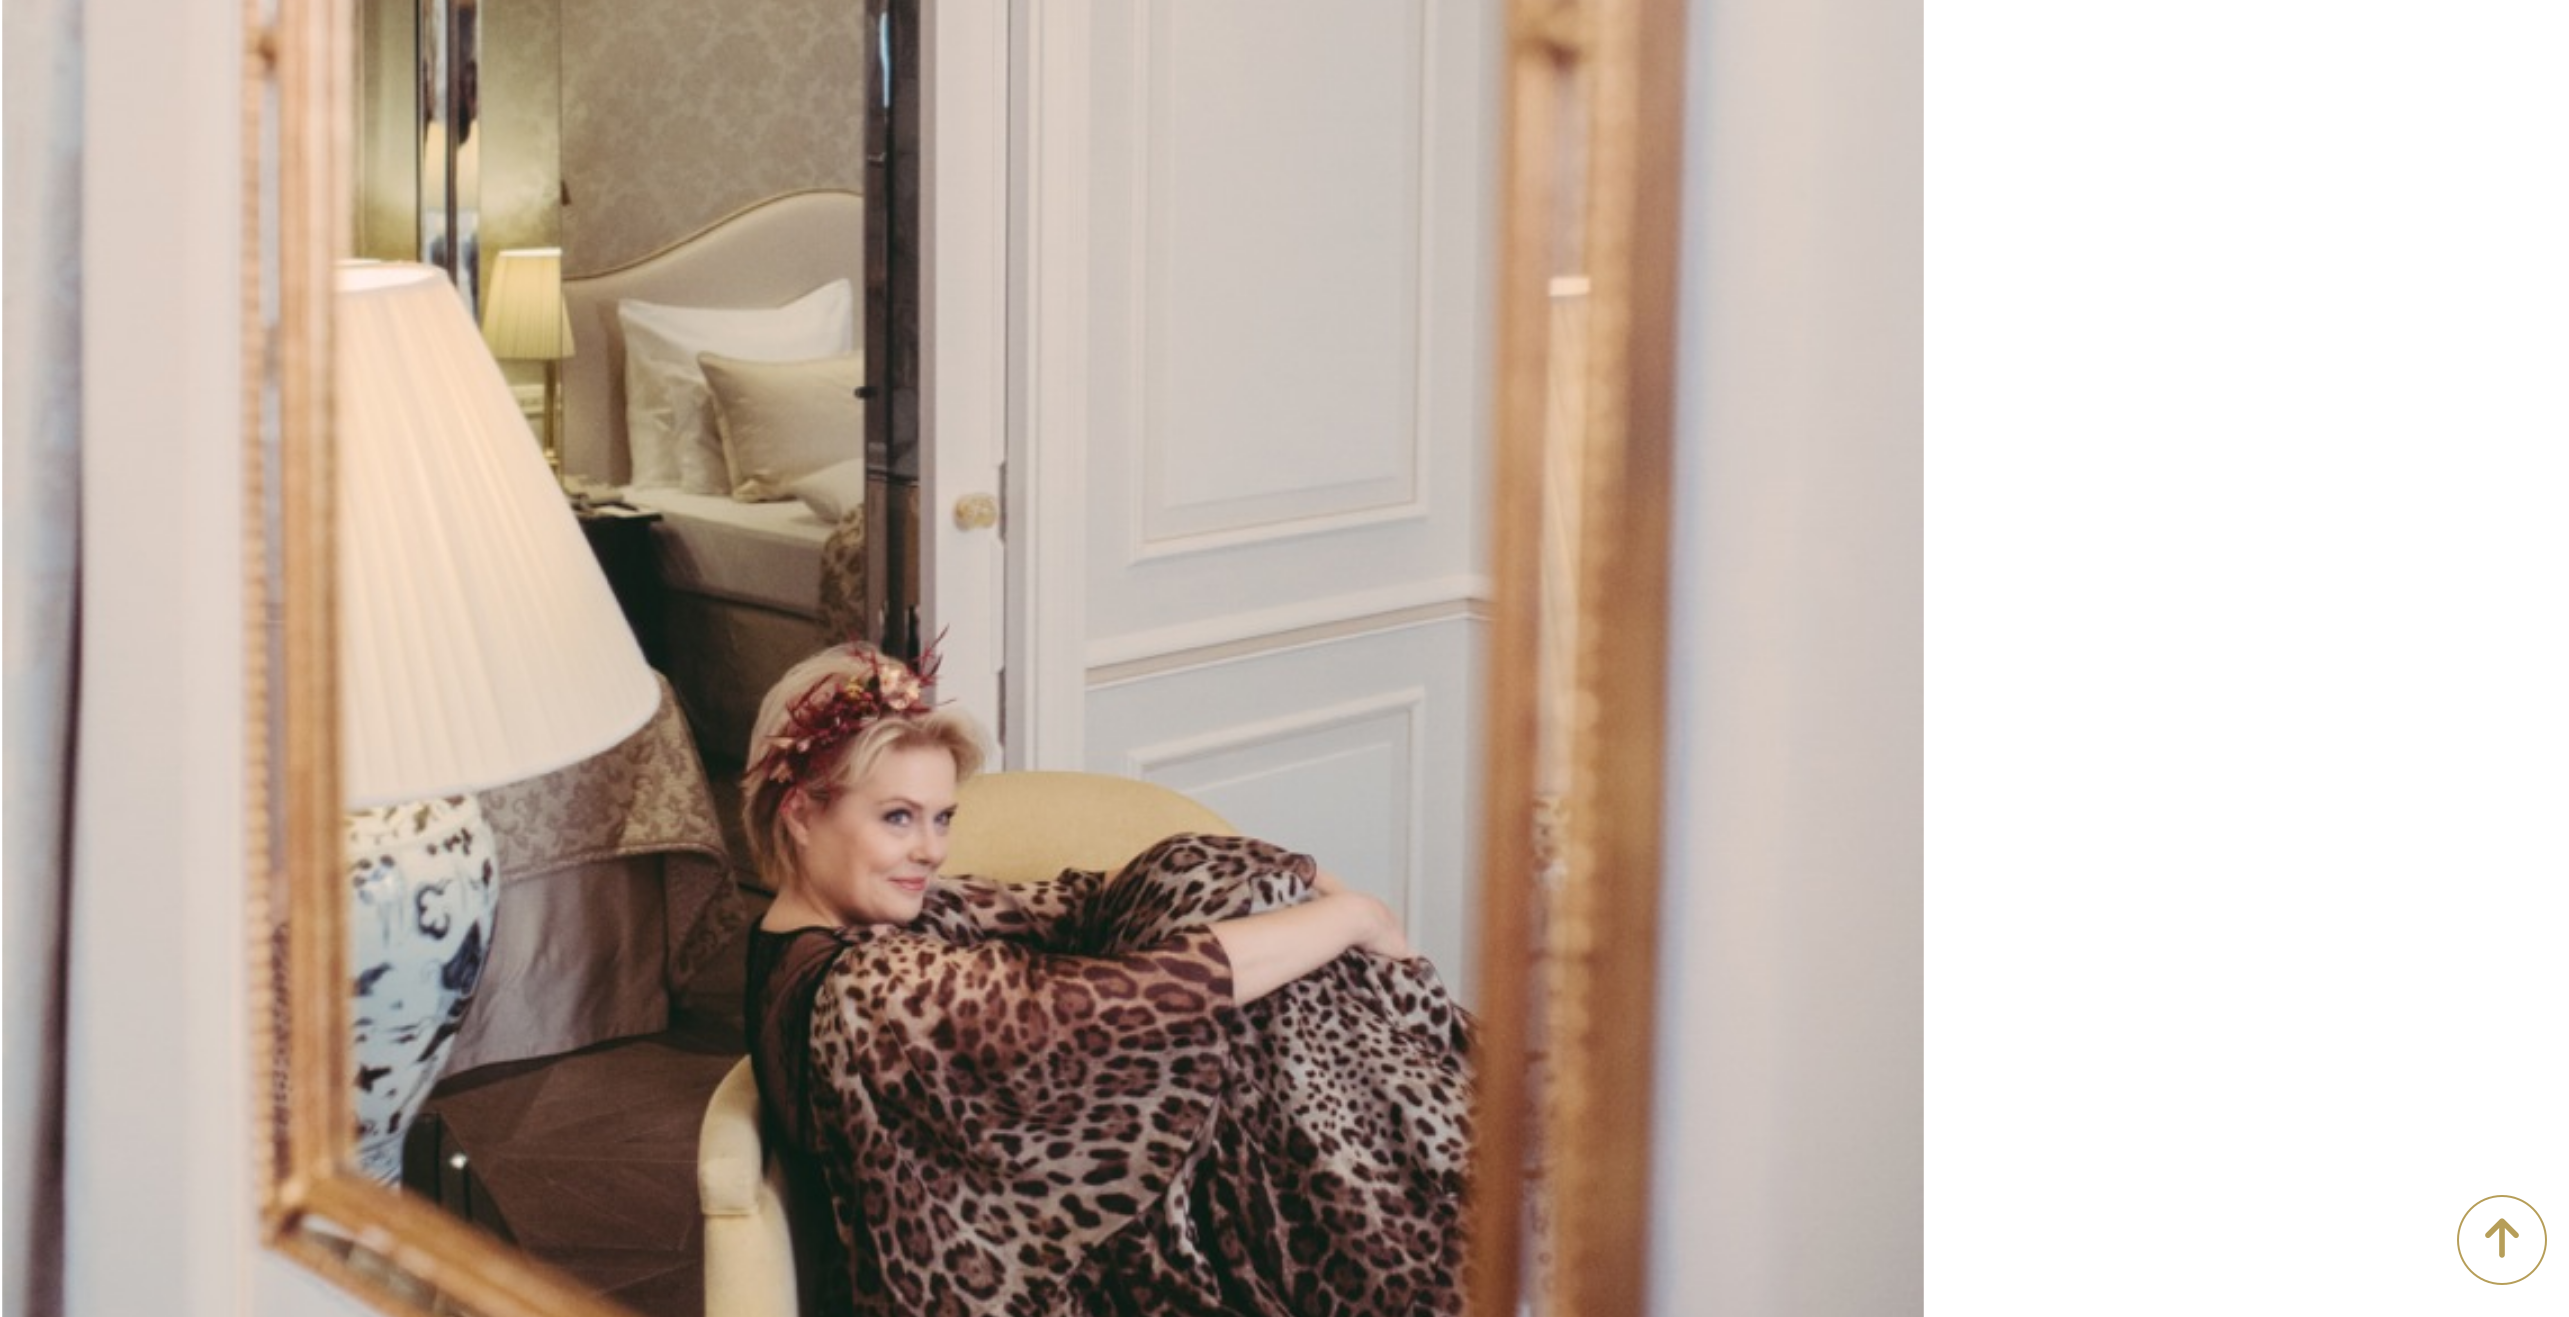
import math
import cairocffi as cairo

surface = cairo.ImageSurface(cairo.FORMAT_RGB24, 2569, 1317)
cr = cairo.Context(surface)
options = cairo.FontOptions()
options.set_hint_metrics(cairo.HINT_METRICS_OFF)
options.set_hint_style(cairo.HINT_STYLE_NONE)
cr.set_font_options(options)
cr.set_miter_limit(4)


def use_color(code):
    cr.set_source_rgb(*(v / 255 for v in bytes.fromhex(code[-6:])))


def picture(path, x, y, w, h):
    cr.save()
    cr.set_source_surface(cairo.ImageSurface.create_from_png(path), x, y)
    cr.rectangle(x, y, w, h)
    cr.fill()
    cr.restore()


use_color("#ffffff")
cr.paint()
picture("img1.png", 2, 0, 1922, 1317)
cr.arc(2502, 1240, 44, 0, 2 * math.pi)
use_color("#b69e59")
cr.stroke()
picture("img2.png", 2485, 1218, 34, 40)
surface.write_to_png("result.png")
